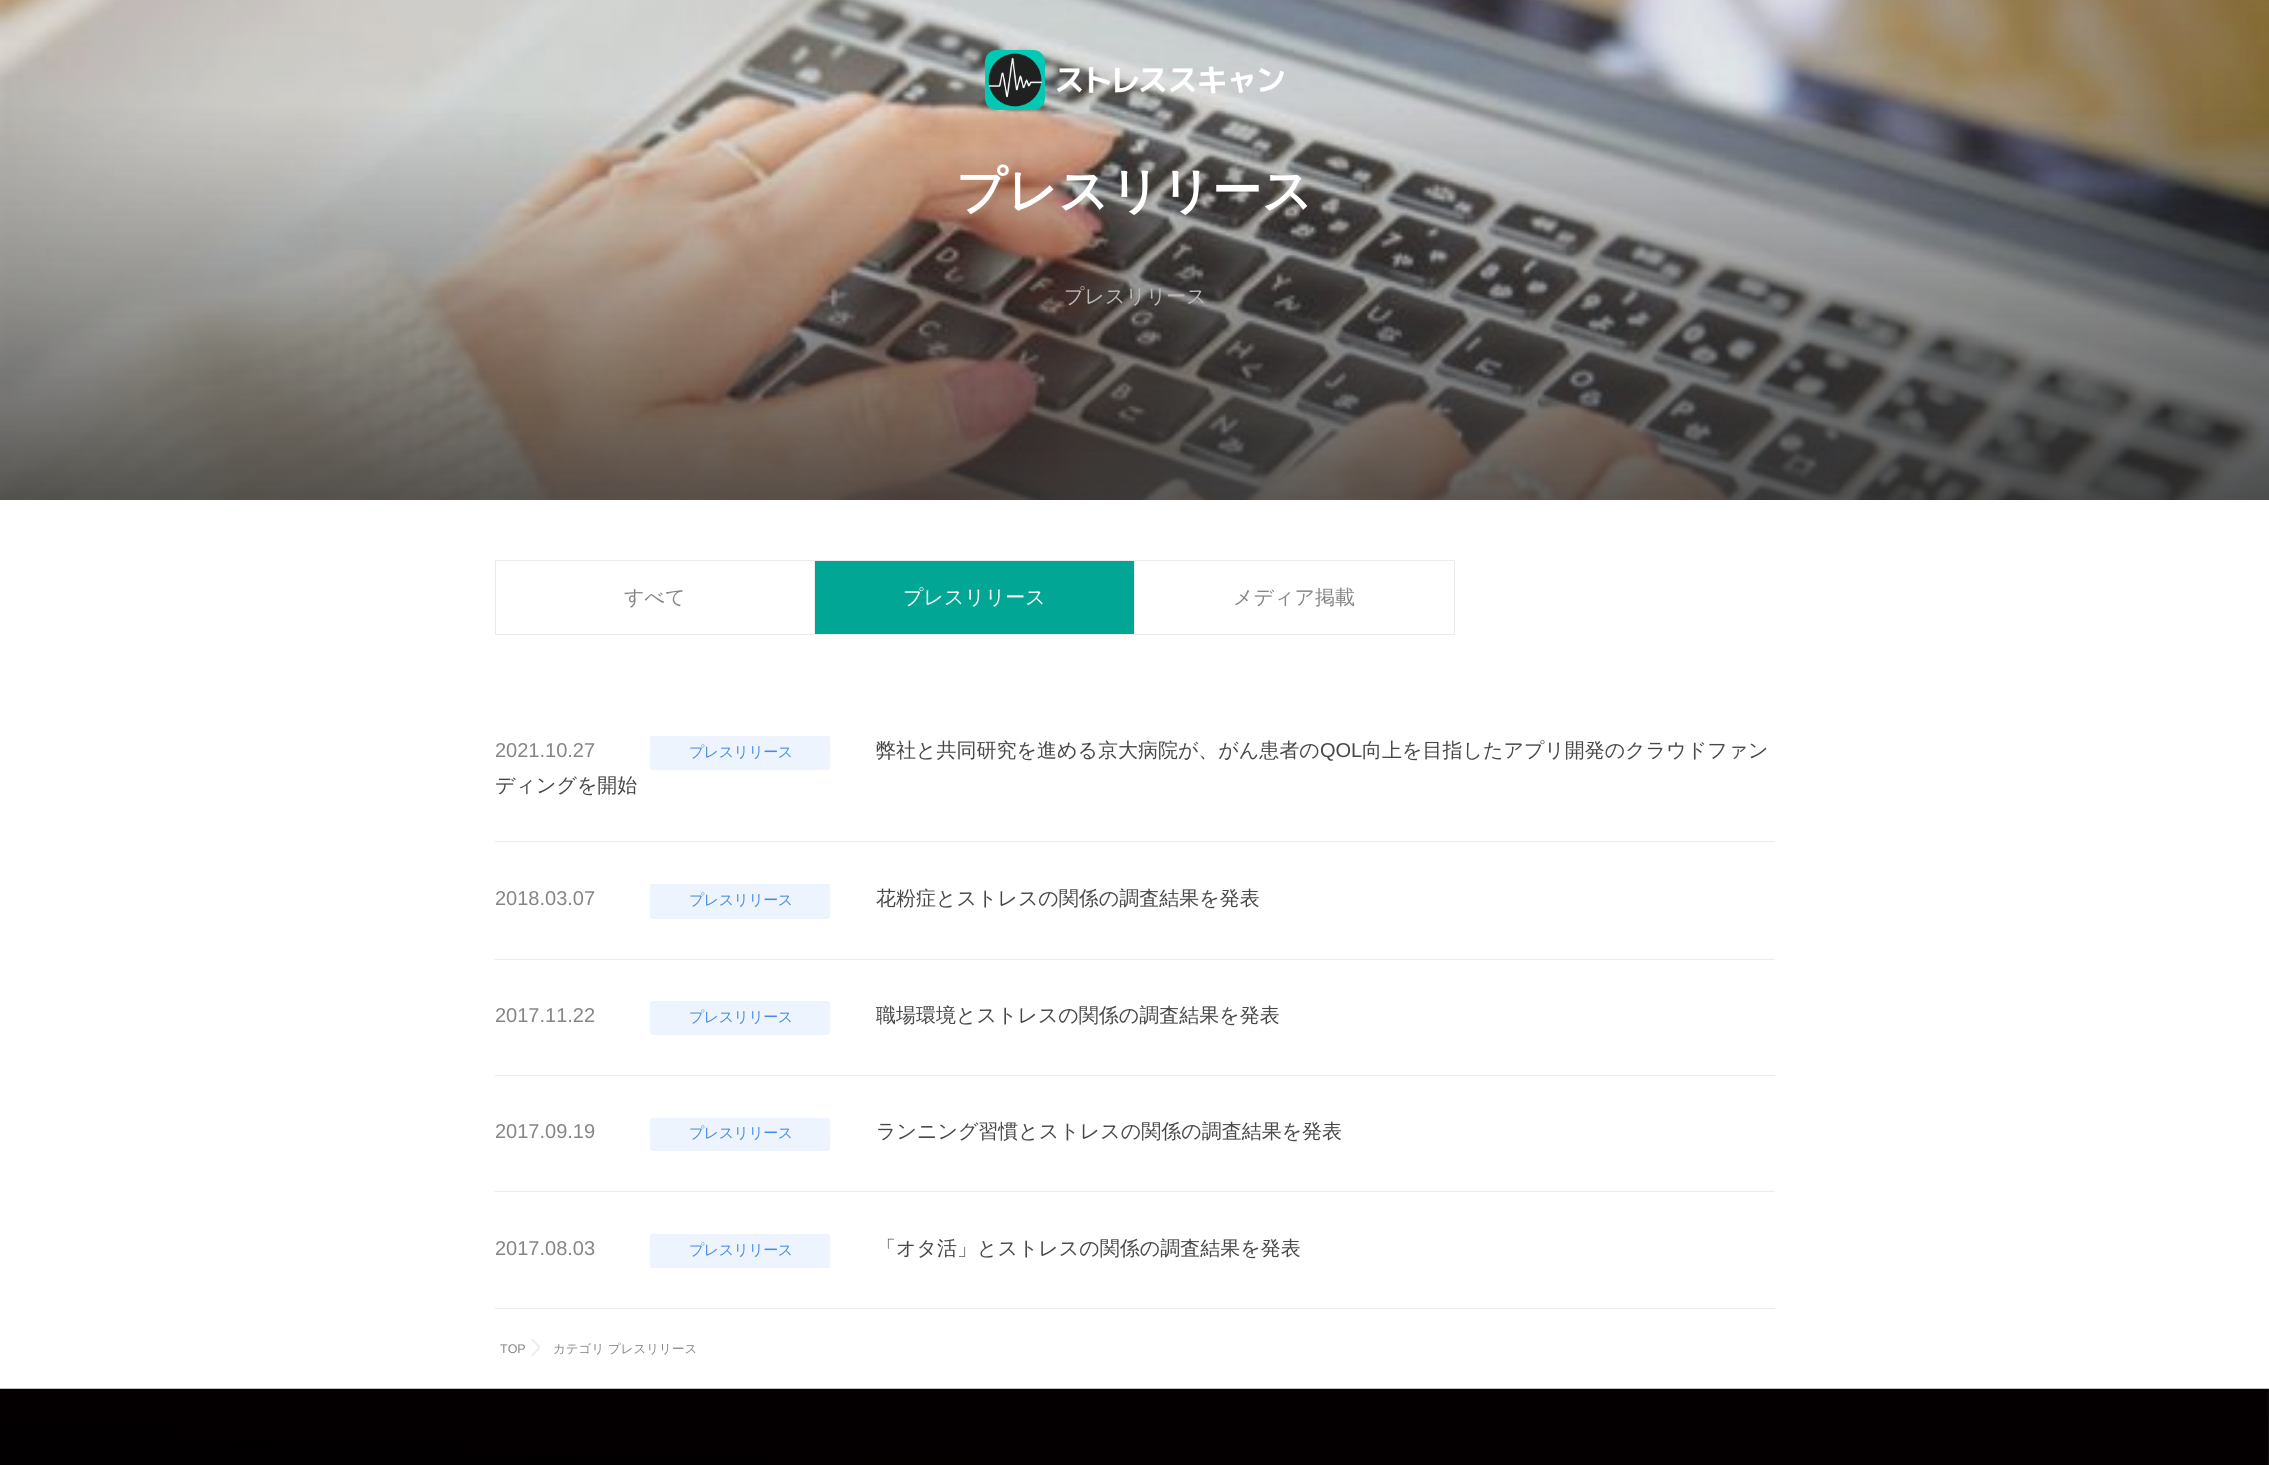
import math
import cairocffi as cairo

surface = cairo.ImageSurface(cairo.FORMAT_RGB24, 2269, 1465)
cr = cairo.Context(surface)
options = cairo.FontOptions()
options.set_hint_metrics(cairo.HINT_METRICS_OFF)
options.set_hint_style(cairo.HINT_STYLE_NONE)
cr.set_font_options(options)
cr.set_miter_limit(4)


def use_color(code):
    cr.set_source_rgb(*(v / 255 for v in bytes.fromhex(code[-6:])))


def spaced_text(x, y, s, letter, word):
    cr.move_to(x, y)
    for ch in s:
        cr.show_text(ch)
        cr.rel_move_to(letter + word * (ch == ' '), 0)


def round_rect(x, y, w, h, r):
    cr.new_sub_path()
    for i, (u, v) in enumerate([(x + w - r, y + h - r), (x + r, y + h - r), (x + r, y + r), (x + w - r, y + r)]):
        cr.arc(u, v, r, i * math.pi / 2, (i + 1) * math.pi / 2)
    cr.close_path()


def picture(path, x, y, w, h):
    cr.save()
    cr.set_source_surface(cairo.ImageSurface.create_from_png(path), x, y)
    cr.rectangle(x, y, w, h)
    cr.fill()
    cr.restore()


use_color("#ffffff")
cr.paint()
picture("img1.png", 0, 0, 2269, 500)
picture("img2.png", 985, 50, 299, 60)
cr.select_font_face("WenQuanYi Zen Hei", cairo.FONT_SLANT_NORMAL, cairo.FONT_WEIGHT_BOLD)
cr.set_font_size(50)
use_color("#ffffff")
cr.move_to(956, 208)
cr.show_text("プレスリリース")
cr.select_font_face("WenQuanYi Zen Hei Medium")
cr.set_font_size(20)
use_color("#bcb9b8")
cr.move_to(1064, 303)
cr.show_text("プレスリリース")
cr.rectangle(495.5, 560.5, 319, 74)
use_color("#ebebeb")
cr.set_line_width(1)
cr.stroke()
use_color("#858585")
cr.move_to(624, 604)
cr.show_text("すべて")
use_color("#ebebeb")
cr.rectangle(815, 560, 640, 1)
cr.fill()
cr.rectangle(1134, 560, 1, 75)
cr.fill()
cr.rectangle(815, 634, 320, 1)
cr.fill()
use_color("#02a695")
cr.rectangle(815, 561, 319, 73)
cr.fill()
use_color("#ffffff")
cr.move_to(903, 604)
cr.show_text("プレスリリース")
use_color("#ebebeb")
cr.rectangle(1454, 560, 1, 75)
cr.fill()
cr.rectangle(1135, 634, 320, 1)
cr.fill()
use_color("#858585")
cr.move_to(1233, 604)
cr.show_text("メディア掲載")
use_color("#ebebeb")
cr.rectangle(495, 841, 1280, 1)
cr.fill()
cr.select_font_face("Liberation Sans")
use_color("#858585")
cr.move_to(495, 757)
cr.show_text("2021.10.27")
use_color("#edf4fd")
round_rect(650, 736, 180, 34, 2.5)
cr.fill()
cr.select_font_face("WenQuanYi Zen Hei Medium")
cr.set_font_size(15)
use_color("#468ce7")
spaced_text(689, 757, "プレスリリース", -0.5, 0)
cr.set_font_size(20)
use_color("#474747")
cr.move_to(876, 757)
cr.show_text("弊社と共同研究を進める京大病院が、がん患者の")
cr.select_font_face("Liberation Sans")
cr.move_to(1320, 757)
cr.show_text("QOL")
cr.select_font_face("WenQuanYi Zen Hei Medium")
cr.move_to(1362, 757)
cr.show_text("向上を目指したアプリ開発のクラウドファン")
cr.move_to(495, 792)
cr.show_text("ディングを開始")
use_color("#ebebeb")
cr.rectangle(495, 959, 1280, 1)
cr.fill()
cr.select_font_face("Liberation Sans")
use_color("#858585")
cr.move_to(495, 905)
cr.show_text("2018.03.07")
use_color("#edf4fd")
round_rect(650, 884, 180, 35, 2.5)
cr.fill()
cr.select_font_face("WenQuanYi Zen Hei Medium")
cr.set_font_size(15)
use_color("#468ce7")
spaced_text(689, 905, "プレスリリース", -0.5, 0)
cr.set_font_size(20)
use_color("#474747")
cr.move_to(876, 905)
cr.show_text("花粉症とストレスの関係の調査結果を発表")
use_color("#ebebeb")
cr.rectangle(495, 1075, 1280, 1)
cr.fill()
cr.select_font_face("Liberation Sans")
use_color("#858585")
cr.move_to(495, 1022)
cr.show_text("2017.11.22")
use_color("#edf4fd")
round_rect(650, 1001, 180, 34, 2.5)
cr.fill()
cr.select_font_face("WenQuanYi Zen Hei Medium")
cr.set_font_size(15)
use_color("#468ce7")
spaced_text(689, 1022, "プレスリリース", -0.5, 0)
cr.set_font_size(20)
use_color("#474747")
cr.move_to(876, 1022)
cr.show_text("職場環境とストレスの関係の調査結果を発表")
use_color("#ebebeb")
cr.rectangle(495, 1191, 1280, 1)
cr.fill()
cr.select_font_face("Liberation Sans")
use_color("#858585")
cr.move_to(495, 1138)
cr.show_text("2017.09.19")
use_color("#edf4fd")
round_rect(650, 1118, 180, 33, 2.5)
cr.fill()
cr.select_font_face("WenQuanYi Zen Hei Medium")
cr.set_font_size(15)
use_color("#468ce7")
spaced_text(689, 1138, "プレスリリース", -0.5, 0)
cr.set_font_size(20)
use_color("#474747")
cr.move_to(876, 1138)
cr.show_text("ランニング習慣とストレスの関係の調査結果を発表")
use_color("#ebebeb")
cr.rectangle(495, 1308, 1280, 1)
cr.fill()
cr.select_font_face("Liberation Sans")
use_color("#858585")
cr.move_to(495, 1255)
cr.show_text("2017.08.03")
use_color("#edf4fd")
round_rect(650, 1234, 180, 34, 2.5)
cr.fill()
cr.select_font_face("WenQuanYi Zen Hei Medium")
cr.set_font_size(15)
use_color("#468ce7")
spaced_text(689, 1255, "プレスリリース", -0.5, 0)
cr.set_font_size(20)
use_color("#474747")
cr.move_to(876, 1255)
cr.show_text("「オタ活」とストレスの関係の調査結果を発表")
cr.select_font_face("Liberation Sans")
cr.set_font_size(12.5)
use_color("#858585")
cr.move_to(500, 1353)
cr.show_text("TOP")
picture("img3.png", 531, 1339, 9, 17)
cr.select_font_face("WenQuanYi Zen Hei Medium")
cr.move_to(553, 1353)
cr.show_text("カテゴリ プレスリリース")
picture("img4.png", 0, 1388, 2269, 77)
surface.write_to_png("result.png")
